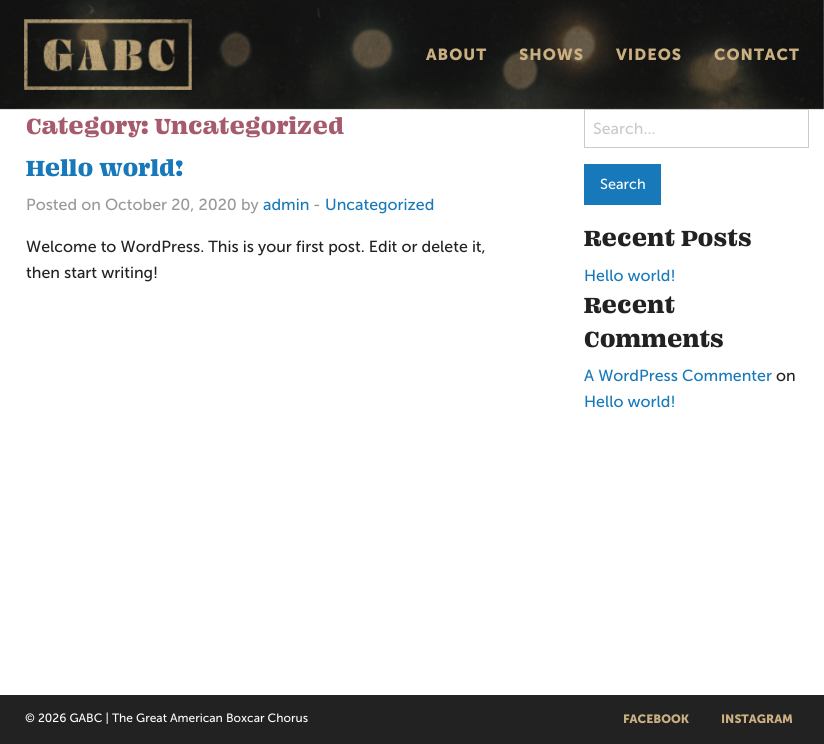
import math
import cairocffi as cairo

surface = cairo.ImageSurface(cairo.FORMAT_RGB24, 824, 744)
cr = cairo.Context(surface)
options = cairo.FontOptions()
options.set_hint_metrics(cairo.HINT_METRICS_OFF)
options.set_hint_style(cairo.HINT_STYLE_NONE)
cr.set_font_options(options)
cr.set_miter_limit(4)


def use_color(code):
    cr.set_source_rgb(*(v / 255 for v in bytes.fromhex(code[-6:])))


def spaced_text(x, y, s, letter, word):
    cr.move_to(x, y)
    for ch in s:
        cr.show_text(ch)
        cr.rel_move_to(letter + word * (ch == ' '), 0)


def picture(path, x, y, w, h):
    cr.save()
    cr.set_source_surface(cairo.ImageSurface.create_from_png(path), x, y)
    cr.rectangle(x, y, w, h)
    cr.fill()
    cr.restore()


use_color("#ffffff")
cr.paint()
picture("img1.png", 0, 0, 824, 110)
picture("img2.png", 24, 19, 168, 71)
cr.select_font_face("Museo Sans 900", cairo.FONT_SLANT_NORMAL, cairo.FONT_WEIGHT_BOLD)
cr.set_font_size(16)
use_color("#caaf81")
spaced_text(426, 60, "ABOUT", 1, 0)
spaced_text(519, 60, "SHOWS", 1, 0)
spaced_text(616, 60, "VIDEOS", 1, 0)
spaced_text(714, 60, "CONTACT", 1, 0)
cr.select_font_face("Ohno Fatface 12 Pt", cairo.FONT_SLANT_NORMAL, cairo.FONT_WEIGHT_BOLD)
cr.set_font_size(24)
use_color("#a55a6d")
cr.move_to(26, 134)
cr.show_text("Category: Uncategorized")
use_color("#1779ba")
cr.move_to(26, 176)
cr.show_text("Hello world!")
cr.select_font_face("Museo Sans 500")
cr.set_font_size(16)
use_color("#999999")
cr.move_to(26, 210)
cr.show_text("Posted on October 20, 2020 by")
use_color("#1779ba")
cr.move_to(263, 210)
cr.show_text("admin")
use_color("#999999")
cr.move_to(313, 210)
cr.show_text("-")
use_color("#1779ba")
cr.move_to(325, 210)
cr.show_text("Uncategorized")
use_color("#222222")
cr.move_to(26, 252)
cr.show_text("Welcome to WordPress. This is your first post. Edit or delete it,")
cr.move_to(26, 278)
cr.show_text("then start writing!")
cr.rectangle(584.5, 109.5, 224, 38)
use_color("#cacaca")
cr.set_line_width(1)
cr.stroke()
cr.move_to(593, 134)
cr.show_text("Search...")
use_color("#1779ba")
cr.rectangle(584, 164, 77, 41)
cr.fill()
cr.set_font_size(14.5)
use_color("#fefefe")
cr.move_to(600, 189)
cr.show_text("Search")
cr.select_font_face("Ohno Fatface 12 Pt", cairo.FONT_SLANT_NORMAL, cairo.FONT_WEIGHT_BOLD)
cr.set_font_size(24)
use_color("#222222")
cr.move_to(584, 246)
cr.show_text("Recent Posts")
cr.select_font_face("Museo Sans 500")
cr.set_font_size(16)
use_color("#1779ba")
cr.move_to(584, 281)
cr.show_text("Hello world!")
cr.select_font_face("Ohno Fatface 12 Pt", cairo.FONT_SLANT_NORMAL, cairo.FONT_WEIGHT_BOLD)
cr.set_font_size(24)
use_color("#222222")
cr.move_to(584, 313)
cr.show_text("Recent")
cr.move_to(584, 347)
cr.show_text("Comments")
cr.select_font_face("Museo Sans 500")
cr.set_font_size(16)
use_color("#1779ba")
cr.move_to(584, 381)
cr.show_text("A WordPress Commenter")
use_color("#222222")
cr.move_to(776, 381)
cr.show_text("on")
use_color("#1779ba")
cr.move_to(584, 407)
cr.show_text("Hello world!")
use_color("#222222")
cr.rectangle(0, 695, 824, 49)
cr.fill()
cr.set_font_size(12)
use_color("#fefefe")
cr.move_to(25, 722)
cr.show_text("© 2026 GABC | The Great American Boxcar Chorus")
cr.select_font_face("Museo Sans 900", cairo.FONT_SLANT_NORMAL, cairo.FONT_WEIGHT_BOLD)
use_color("#caaf81")
cr.move_to(623, 723)
cr.show_text("FACEBOOK")
cr.move_to(721, 723)
cr.show_text("INSTAGRAM")
surface.write_to_png("result.png")
